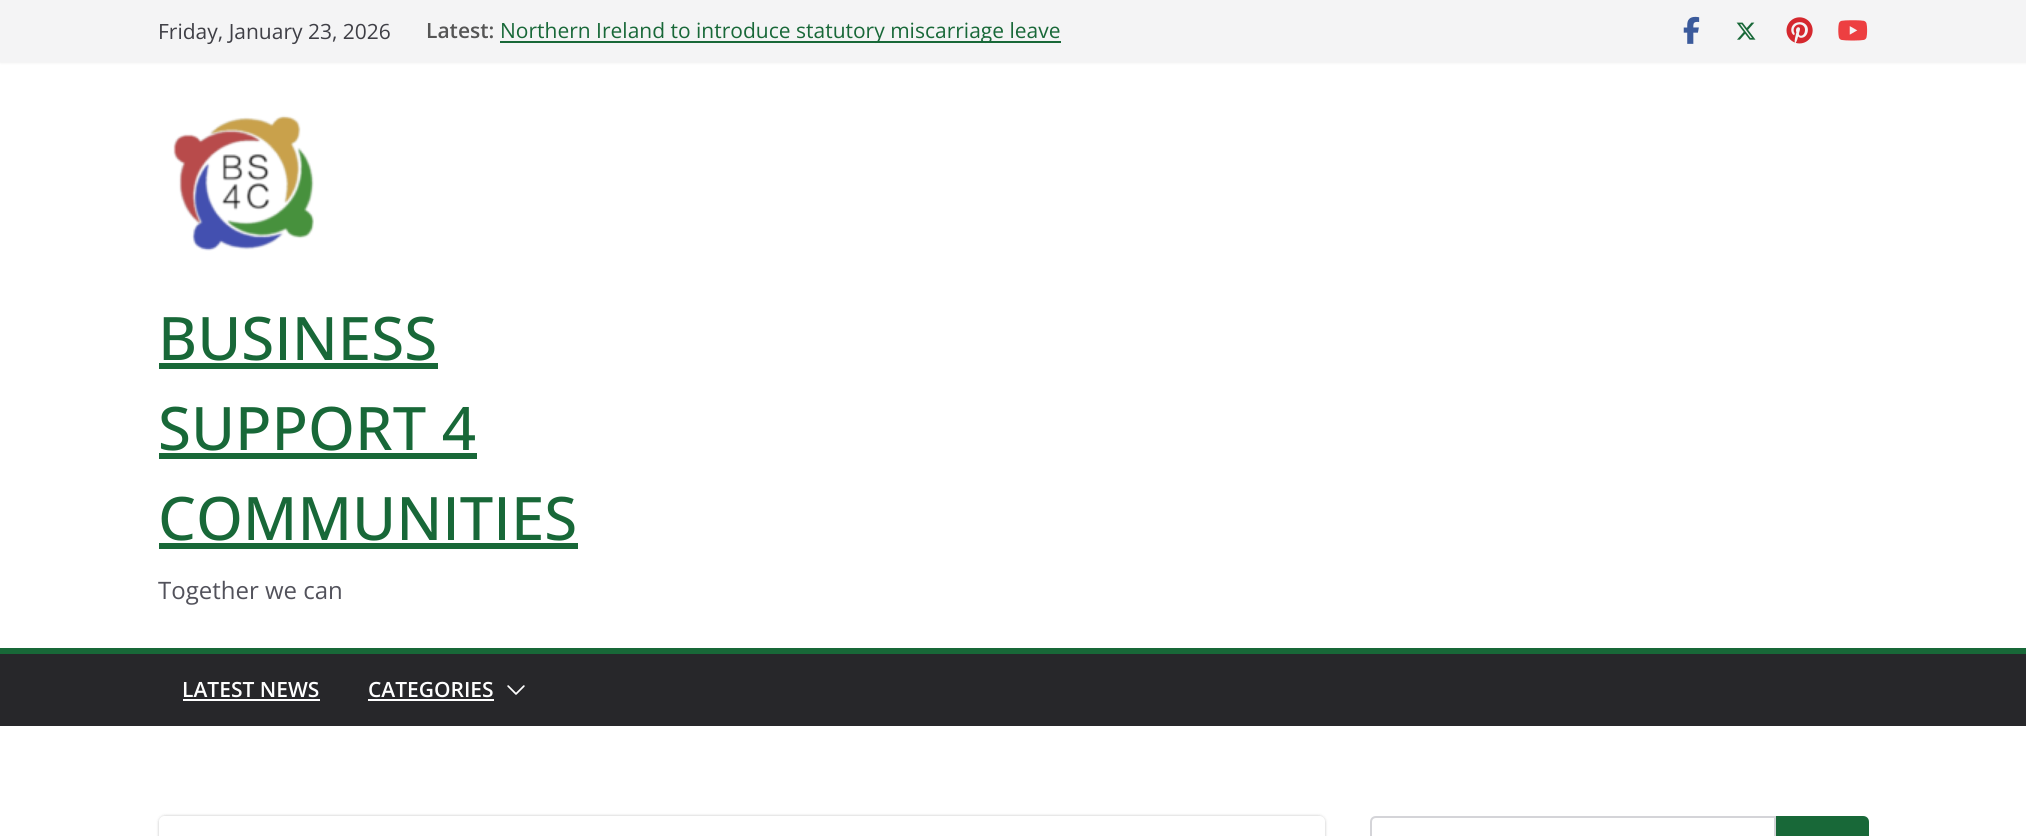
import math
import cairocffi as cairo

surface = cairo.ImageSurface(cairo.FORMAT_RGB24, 2026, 836)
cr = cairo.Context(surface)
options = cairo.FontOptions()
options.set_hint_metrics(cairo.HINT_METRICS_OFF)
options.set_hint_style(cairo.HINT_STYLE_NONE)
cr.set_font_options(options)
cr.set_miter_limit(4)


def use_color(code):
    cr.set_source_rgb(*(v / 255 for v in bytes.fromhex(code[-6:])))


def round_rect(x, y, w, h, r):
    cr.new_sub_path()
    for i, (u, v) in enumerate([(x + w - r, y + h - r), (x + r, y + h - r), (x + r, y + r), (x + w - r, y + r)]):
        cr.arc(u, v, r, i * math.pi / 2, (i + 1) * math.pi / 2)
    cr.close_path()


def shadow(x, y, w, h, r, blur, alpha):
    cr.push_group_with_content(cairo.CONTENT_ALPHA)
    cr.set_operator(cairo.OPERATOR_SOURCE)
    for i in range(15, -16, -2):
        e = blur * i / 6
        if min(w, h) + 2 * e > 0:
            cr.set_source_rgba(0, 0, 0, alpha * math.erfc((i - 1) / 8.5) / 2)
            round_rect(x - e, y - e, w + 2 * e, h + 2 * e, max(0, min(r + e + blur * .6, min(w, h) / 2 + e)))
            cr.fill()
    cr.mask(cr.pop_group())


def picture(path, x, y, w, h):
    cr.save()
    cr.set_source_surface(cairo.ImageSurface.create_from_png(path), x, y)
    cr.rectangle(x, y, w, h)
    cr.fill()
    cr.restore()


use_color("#ffffff")
cr.paint()
use_color("#000000")
shadow(0, 0, 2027, 62, 0, 1.5, 0.1)
use_color("#f4f4f5")
cr.rectangle(0, 0, 2026, 62)
cr.fill()
cr.select_font_face("Open Sans")
cr.set_font_size(21)
use_color("#3f3f46")
cr.move_to(158, 39)
cr.show_text("Friday, January 23, 2026")
cr.select_font_face("Open Sans SemiBold")
use_color("#555555")
cr.move_to(426, 38)
cr.show_text("Latest:")
use_color("#186838")
cr.rectangle(500, 41, 561, 2)
cr.fill()
cr.select_font_face("Open Sans")
cr.move_to(500, 38)
cr.show_text("Northern Ireland to introduce statutory miscarriage leave")
picture("img1.png", 1683, 16, 17, 28)
picture("img2.png", 1736, 22, 20, 18)
picture("img3.png", 1786, 17, 27, 27)
picture("img4.png", 1838, 20, 30, 21)
picture("img5.png", 173, 115, 141, 136)
cr.select_font_face("Open Sans Medium")
cr.set_font_size(60)
cr.move_to(158, 360)
cr.show_text("BUSINESS")
cr.rectangle(159, 363, 279, 6)
cr.fill()
cr.move_to(158, 450)
cr.show_text("SUPPORT 4")
cr.rectangle(159, 453, 318, 6)
cr.fill()
cr.move_to(158, 540)
cr.show_text("COMMUNITIES")
cr.rectangle(159, 543, 419, 6)
cr.fill()
cr.select_font_face("Open Sans")
cr.set_font_size(24)
use_color("#52525b")
cr.move_to(158, 599)
cr.show_text("Together we can")
use_color("#27272a")
cr.rectangle(0, 654, 2026, 72)
cr.fill()
use_color("#186838")
cr.rectangle(0, 648, 2026, 6)
cr.fill()
cr.select_font_face("Open Sans SemiBold")
cr.set_font_size(21)
use_color("#ffffff")
cr.move_to(182, 697)
cr.show_text("LATEST NEWS")
cr.rectangle(183, 699, 137, 2)
cr.fill()
cr.move_to(368, 697)
cr.show_text("CATEGORIES")
cr.rectangle(368, 699, 126, 2)
cr.fill()
picture("img6.png", 507, 685, 18, 10)
cr.save()
cr.set_fill_rule(cairo.FILL_RULE_EVEN_ODD)
cr.new_path()
cr.move_to(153, 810)
cr.line_to(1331, 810)
cr.line_to(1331, 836)
cr.line_to(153, 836)
cr.close_path()
cr.move_to(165, 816)
cr.line_to(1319, 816)
cr.curve_to(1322.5, 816, 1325, 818.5, 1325, 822)
cr.line_to(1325, 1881)
cr.curve_to(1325, 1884.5, 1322.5, 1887, 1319, 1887)
cr.line_to(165, 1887)
cr.curve_to(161.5, 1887, 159, 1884.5, 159, 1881)
cr.line_to(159, 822)
cr.curve_to(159, 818.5, 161.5, 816, 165, 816)
cr.close_path()
cr.clip()
use_color("#000000")
shadow(159, 816, 1166, 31, 6, 1.5, 0.24)
cr.restore()
cr.new_path()
cr.move_to(1376, 817)
cr.line_to(1775, 817)
cr.line_to(1775, 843)
cr.line_to(1376, 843)
cr.curve_to(1373, 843, 1371, 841, 1371, 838)
cr.line_to(1371, 822)
cr.curve_to(1371, 819, 1373, 817, 1376, 817)
cr.close_path()
use_color("#d4d4d8")
cr.stroke()
use_color("#186838")
cr.new_path()
cr.move_to(1777, 817)
cr.line_to(1863, 817)
cr.curve_to(1866, 817, 1868, 819, 1868, 822)
cr.line_to(1868, 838)
cr.curve_to(1868, 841, 1866, 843, 1863, 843)
cr.line_to(1777, 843)
cr.close_path()
cr.fill_preserve()
cr.stroke()
surface.write_to_png("result.png")
